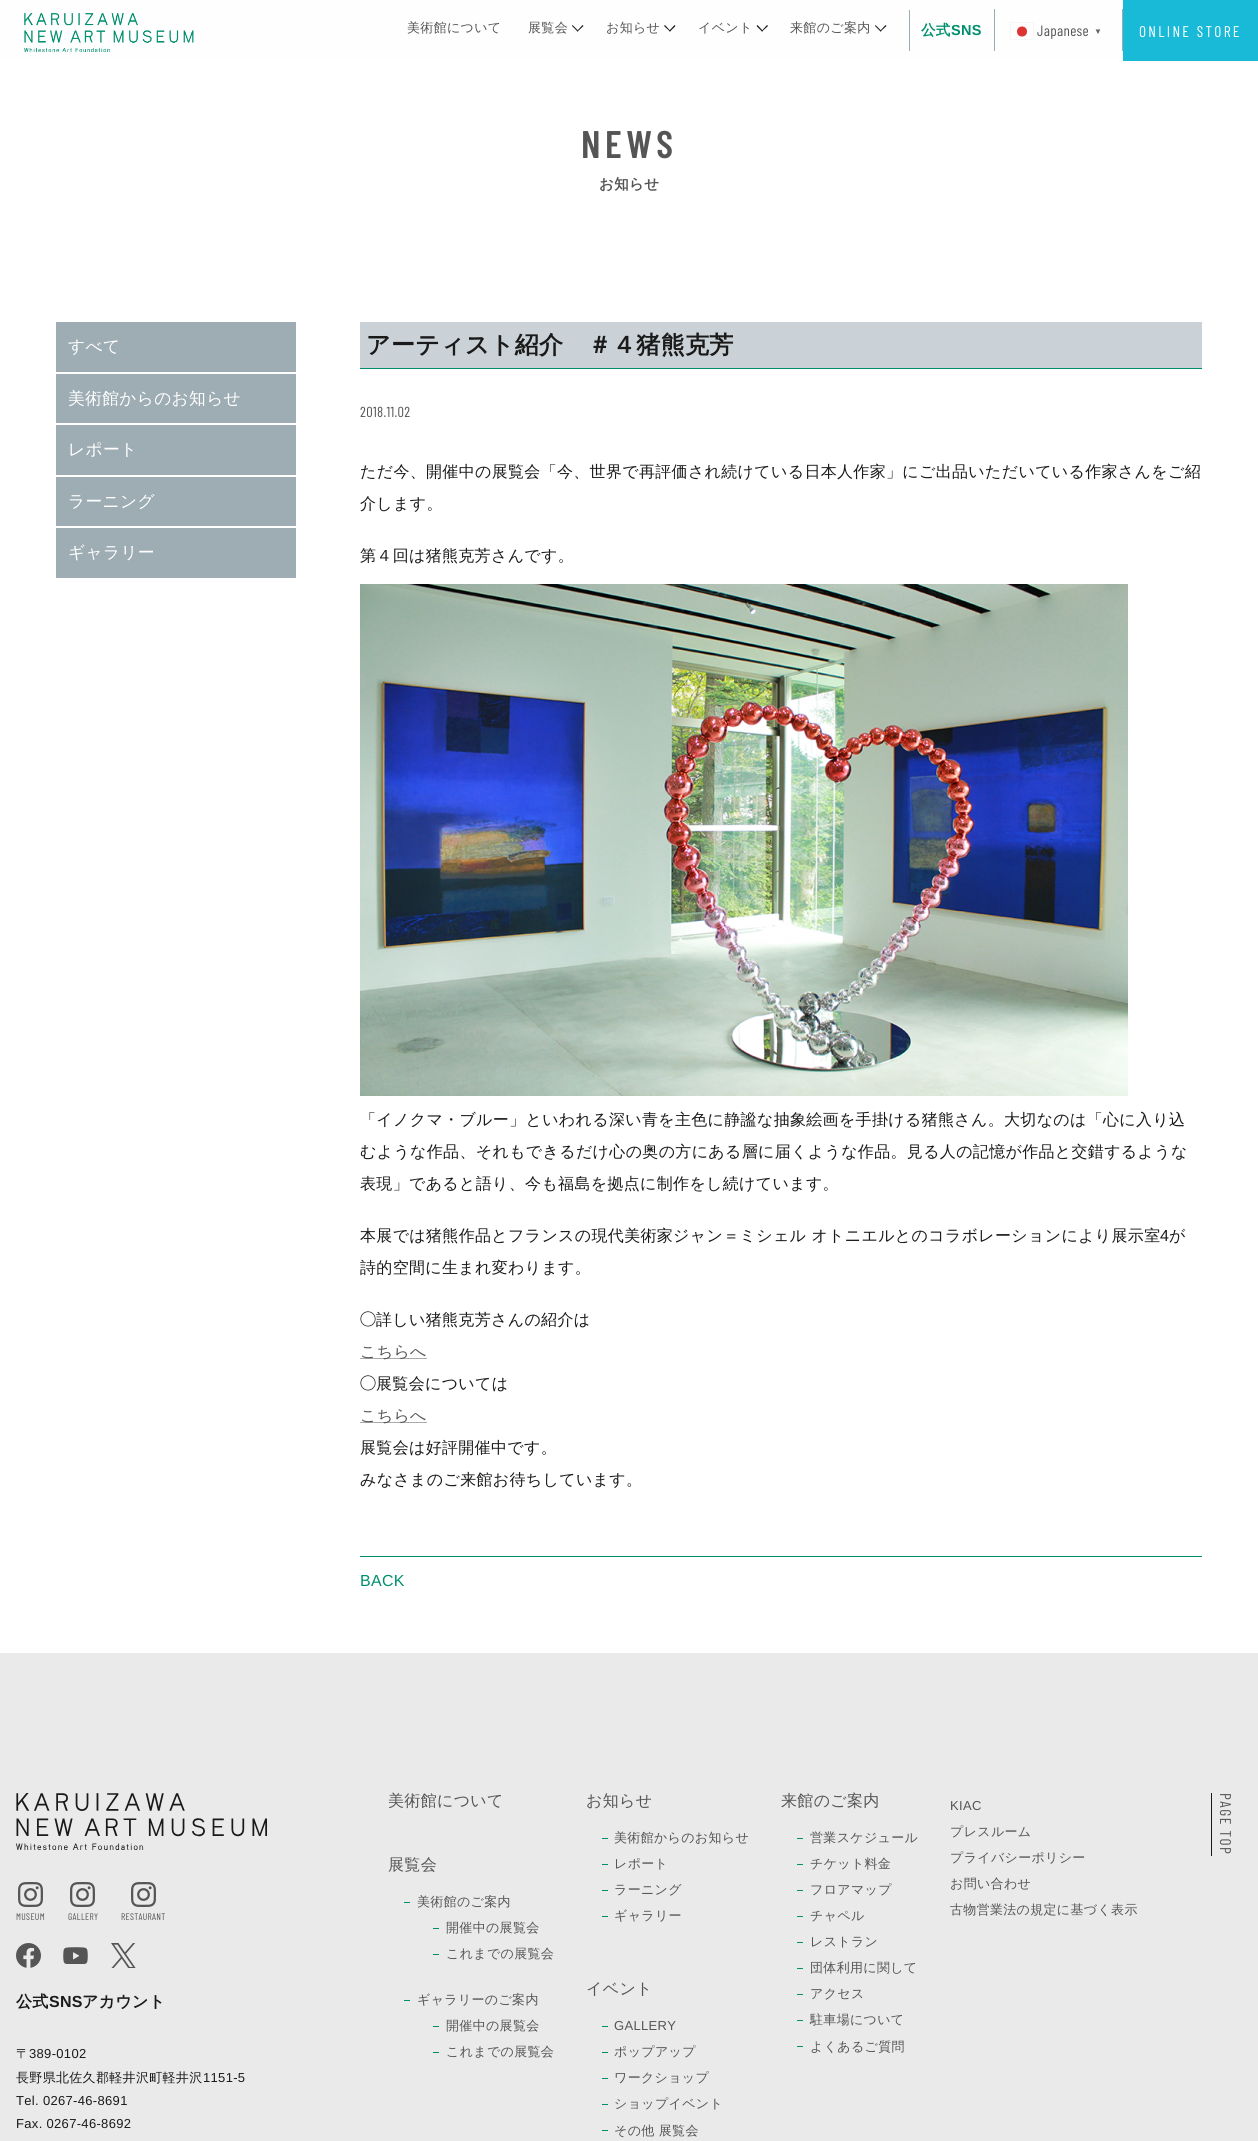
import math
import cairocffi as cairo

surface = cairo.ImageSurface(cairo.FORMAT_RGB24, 1258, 2141)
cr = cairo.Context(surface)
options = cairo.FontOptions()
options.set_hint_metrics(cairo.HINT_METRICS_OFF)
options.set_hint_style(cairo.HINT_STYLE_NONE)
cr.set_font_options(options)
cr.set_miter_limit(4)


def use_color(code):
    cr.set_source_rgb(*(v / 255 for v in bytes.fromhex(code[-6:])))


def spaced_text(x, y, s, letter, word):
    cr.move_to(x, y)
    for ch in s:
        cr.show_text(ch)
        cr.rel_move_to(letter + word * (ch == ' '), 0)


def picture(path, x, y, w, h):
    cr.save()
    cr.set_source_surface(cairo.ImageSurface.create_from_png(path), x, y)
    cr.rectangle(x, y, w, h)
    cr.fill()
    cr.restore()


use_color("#eaeaea")
cr.paint()
use_color("#fefefe")
cr.rectangle(0, 0, 1123, 61)
cr.fill()
picture("img1.png", 24, 13, 170, 39)
cr.select_font_face("WenQuanYi Zen Hei Medium")
cr.set_font_size(13)
use_color("#555555")
spaced_text(407, 32, "美術館について", 0.32, 0)
spaced_text(528, 32, "展覧会", 0.32, 0)
use_color("#1a1a1a")
cr.new_path()
cr.move_to(583.5, 26)
cr.line_to(577.5, 31.5)
cr.line_to(577, 31)
cr.line_to(582.5, 25)
cr.close_path()
cr.fill()
cr.new_path()
cr.move_to(578.5, 31)
cr.line_to(577.5, 31.5)
cr.line_to(572, 26)
cr.line_to(572.5, 25)
cr.close_path()
cr.fill()
use_color("#555555")
spaced_text(606, 32, "お知らせ", 0.32, 0)
use_color("#1a1a1a")
cr.new_path()
cr.move_to(675.5, 26)
cr.line_to(670, 31.5)
cr.line_to(669, 31)
cr.line_to(674.5, 25)
cr.close_path()
cr.fill()
cr.new_path()
cr.move_to(670.5, 31)
cr.line_to(670, 31.5)
cr.line_to(664, 26)
cr.line_to(665, 25)
cr.close_path()
cr.fill()
use_color("#555555")
spaced_text(698, 32, "イベント", 0.32, 0)
use_color("#1a1a1a")
cr.new_path()
cr.move_to(768, 26)
cr.line_to(762, 31.5)
cr.line_to(761.5, 31)
cr.line_to(767, 25)
cr.close_path()
cr.fill()
cr.new_path()
cr.move_to(763, 31)
cr.line_to(762, 31.5)
cr.line_to(756.5, 26)
cr.line_to(757.5, 25)
cr.close_path()
cr.fill()
use_color("#555555")
spaced_text(790, 32, "来館のご案内", 0.32, 0)
use_color("#1a1a1a")
cr.new_path()
cr.move_to(886.5, 26)
cr.line_to(880.5, 31.5)
cr.line_to(880, 31)
cr.line_to(885.5, 25)
cr.close_path()
cr.fill()
cr.new_path()
cr.move_to(881.5, 31)
cr.line_to(880.5, 31.5)
cr.line_to(875, 26)
cr.line_to(875.5, 25)
cr.close_path()
cr.fill()
use_color("#9eacb4")
cr.rectangle(909, 10, 1, 41)
cr.fill()
cr.select_font_face("WenQuanYi Zen Hei", cairo.FONT_SLANT_NORMAL, cairo.FONT_WEIGHT_BOLD)
cr.set_font_size(14.5)
use_color("#008f6e")
spaced_text(921, 35, "公式", 0.32, 0)
cr.select_font_face("Liberation Sans", cairo.FONT_SLANT_NORMAL, cairo.FONT_WEIGHT_BOLD)
spaced_text(951, 35, "SNS", 0.32, 0)
use_color("#9eacb4")
cr.rectangle(994, 9, 1, 42)
cr.fill()
cr.select_font_face("Barlow Condensed")
cr.set_font_size(15)
use_color("#555555")
spaced_text(1037, 36, "Japanese", 0.32, 0)
cr.rectangle(1010.5, 22.5, 23, 17)
use_color("#f6f6f6")
cr.set_line_width(1)
cr.stroke()
use_color("#dc3333")
cr.arc(1022, 31.5, 5, 0, 2 * math.pi)
cr.fill()
cr.select_font_face("Liberation Sans", cairo.FONT_SLANT_NORMAL, cairo.FONT_WEIGHT_BOLD)
cr.set_font_size(8)
use_color("#666666")
spaced_text(1094, 34, "▼", 0.32, 0)
use_color("#9eacb4")
cr.rectangle(1122, 9, 1, 42)
cr.fill()
use_color("#19bad8")
cr.rectangle(1123, 0, 135, 61)
cr.fill()
cr.select_font_face("Barlow Condensed")
cr.set_font_size(15.5)
use_color("#ffffff")
spaced_text(1139, 37, "ONLINE STORE", 2.3, 0)
cr.rectangle(0, 61, 1258, 1592)
cr.fill()
cr.select_font_face("Barlow Condensed SemiBold")
cr.set_font_size(38.5)
use_color("#555555")
spaced_text(581, 158, "NEWS", 4.5, 0)
cr.select_font_face("WenQuanYi Zen Hei", cairo.FONT_SLANT_NORMAL, cairo.FONT_WEIGHT_BOLD)
cr.set_font_size(14.5)
spaced_text(599, 189, "お知らせ", 0.32, 0)
use_color("#9eacb4")
cr.rectangle(56, 322, 240, 50)
cr.fill()
cr.select_font_face("WenQuanYi Zen Hei Medium")
cr.set_font_size(16.75)
use_color("#ffffff")
spaced_text(68, 352, "すべて", 0.32, 0)
use_color("#9eacb4")
cr.rectangle(56, 374, 240, 49)
cr.fill()
use_color("#ffffff")
spaced_text(68, 404, "美術館からのお知らせ", 0.32, 0)
use_color("#9eacb4")
cr.rectangle(56, 425, 240, 50)
cr.fill()
use_color("#ffffff")
spaced_text(68, 455, "レポート", 0.32, 0)
use_color("#9eacb4")
cr.rectangle(56, 477, 240, 49)
cr.fill()
use_color("#ffffff")
spaced_text(68, 507, "ラーニング", 0.32, 0)
use_color("#9eacb4")
cr.rectangle(56, 528, 240, 50)
cr.fill()
use_color("#ffffff")
spaced_text(68, 558, "ギャラリー", 0.32, 0)
use_color("#cbd2d7")
cr.rectangle(360, 322, 842, 46)
cr.fill()
use_color("#008f6e")
cr.rectangle(360, 368, 842, 1)
cr.fill()
cr.select_font_face("WenQuanYi Zen Hei", cairo.FONT_SLANT_NORMAL, cairo.FONT_WEIGHT_BOLD)
cr.set_font_size(24)
use_color("#1a1a1a")
spaced_text(366, 353, "アーティスト紹介　＃４猪熊克芳", 0.32, 0)
cr.select_font_face("Barlow Condensed")
cr.set_font_size(14.5)
use_color("#555555")
spaced_text(360, 417, "2018.11.02", 0.32, 0)
cr.select_font_face("WenQuanYi Zen Hei Medium")
cr.set_font_size(16)
use_color("#1a1a1a")
spaced_text(360, 477, "ただ今、開催中の展覧会「今、世界で再評価され続けている日本人作家」にご出品いただいている作家さんをご紹", 0.32, 0)
spaced_text(360, 509, "介します。", 0.32, 0)
spaced_text(360, 561, "第４回は猪熊克芳さんです。", 0.32, 0)
picture("img2.png", 360, 584, 768, 512)
spaced_text(360, 1125, "「イノクマ・ブルー」といわれる深い青を主色に静謐な抽象絵画を手掛ける猪熊さん。大切なのは「心に入り込", 0.32, 0)
spaced_text(360, 1157, "むような作品、それもできるだけ心の奥の方にある層に届くような作品。見る人の記憶が作品と交錯するような", 0.32, 0)
spaced_text(360, 1189, "表現」であると語り、今も福島を拠点に制作をし続けています。", 0.32, 0)
spaced_text(360, 1241, "本展では猪熊作品とフランスの現代美術家ジャン＝ミシェル オトニエルとのコラボレーションにより展示室", 0.32, 0)
cr.select_font_face("Liberation Sans")
spaced_text(1160, 1241, "4", 0.32, 0)
cr.select_font_face("WenQuanYi Zen Hei Medium")
spaced_text(1169, 1241, "が", 0.32, 0)
spaced_text(360, 1273, "詩的空間に生まれ変わります。", 0.32, 0)
cr.select_font_face("IPAPGothic")
spaced_text(360, 1325, "◯", 0.32, 0)
cr.select_font_face("WenQuanYi Zen Hei Medium")
spaced_text(376, 1325, "詳しい猪熊克芳さんの紹介は", 0.32, 0)
use_color("#aaaaaa")
cr.rectangle(360, 1358, 67, 1)
cr.fill()
use_color("#555555")
spaced_text(360, 1357, "こちらへ", 0.32, 0)
cr.select_font_face("IPAPGothic")
use_color("#1a1a1a")
spaced_text(360, 1389, "◯", 0.32, 0)
cr.select_font_face("WenQuanYi Zen Hei Medium")
spaced_text(376, 1389, "展覧会については", 0.32, 0)
use_color("#aaaaaa")
cr.rectangle(360, 1422, 67, 1)
cr.fill()
use_color("#555555")
spaced_text(360, 1421, "こちらへ", 0.32, 0)
use_color("#1a1a1a")
spaced_text(360, 1453, "展覧会は好評開催中です。", 0.32, 0)
spaced_text(360, 1485, "みなさまのご来館お待ちしています。", 0.32, 0)
use_color("#008f6e")
cr.rectangle(360, 1556, 842, 1)
cr.fill()
cr.select_font_face("Liberation Sans")
spaced_text(360, 1586, "BACK", 0.32, 0)
cr.select_font_face("WenQuanYi Zen Hei Medium")
use_color("#555555")
spaced_text(388, 1806, "美術館について", 0.32, 0)
spaced_text(388, 1870, "展覧会", 0.32, 0)
use_color("#008f6e")
cr.rectangle(404, 1902, 6, 1)
cr.fill()
cr.set_font_size(13)
use_color("#555555")
spaced_text(417, 1906, "美術館のご案内", 0.32, 0)
use_color("#008f6e")
cr.rectangle(433, 1928, 6, 1)
cr.fill()
use_color("#555555")
spaced_text(446, 1932, "開催中の展覧会", 0.32, 0)
use_color("#008f6e")
cr.rectangle(433, 1954, 6, 1)
cr.fill()
use_color("#555555")
spaced_text(446, 1958, "これまでの展覧会", 0.32, 0)
use_color("#008f6e")
cr.rectangle(404, 2000, 6, 1)
cr.fill()
use_color("#555555")
spaced_text(417, 2004, "ギャラリーのご案内", 0.32, 0)
use_color("#008f6e")
cr.rectangle(433, 2026, 6, 1)
cr.fill()
use_color("#555555")
spaced_text(446, 2030, "開催中の展覧会", 0.32, 0)
use_color("#008f6e")
cr.rectangle(433, 2052, 6, 1)
cr.fill()
use_color("#555555")
spaced_text(446, 2056, "これまでの展覧会", 0.32, 0)
cr.set_font_size(16)
spaced_text(586, 1806, "お知らせ", 0.32, 0)
use_color("#008f6e")
cr.rectangle(602, 1838, 6, 1)
cr.fill()
cr.set_font_size(13)
use_color("#555555")
spaced_text(614, 1842, "美術館からのお知らせ", 0.32, 0)
use_color("#008f6e")
cr.rectangle(602, 1864, 6, 1)
cr.fill()
use_color("#555555")
spaced_text(614, 1868, "レポート", 0.32, 0)
use_color("#008f6e")
cr.rectangle(602, 1890, 6, 1)
cr.fill()
use_color("#555555")
spaced_text(614, 1894, "ラーニング", 0.32, 0)
use_color("#008f6e")
cr.rectangle(602, 1916, 6, 1)
cr.fill()
use_color("#555555")
spaced_text(614, 1920, "ギャラリー", 0.32, 0)
cr.set_font_size(16)
spaced_text(586, 1994, "イベント", 0.32, 0)
use_color("#008f6e")
cr.rectangle(602, 2026, 6, 1)
cr.fill()
cr.select_font_face("Liberation Sans")
cr.set_font_size(13)
use_color("#555555")
spaced_text(614, 2030, "GALLERY", 0.32, 0)
use_color("#008f6e")
cr.rectangle(602, 2052, 6, 1)
cr.fill()
cr.select_font_face("WenQuanYi Zen Hei Medium")
use_color("#555555")
spaced_text(614, 2056, "ポップアップ", 0.32, 0)
use_color("#008f6e")
cr.rectangle(602, 2078, 6, 1)
cr.fill()
use_color("#555555")
spaced_text(614, 2082, "ワークショップ", 0.32, 0)
use_color("#008f6e")
cr.rectangle(602, 2104, 6, 1)
cr.fill()
use_color("#555555")
spaced_text(614, 2108, "ショップイベント", 0.32, 0)
use_color("#008f6e")
cr.rectangle(602, 2130, 6, 1)
cr.fill()
use_color("#555555")
spaced_text(614, 2135, "その他 展覧会", 0.32, 0)
cr.set_font_size(16)
spaced_text(781, 1806, "来館のご案内", 0.32, 0)
use_color("#008f6e")
cr.rectangle(797, 1838, 6, 1)
cr.fill()
cr.set_font_size(13)
use_color("#555555")
spaced_text(810, 1842, "営業スケジュール", 0.32, 0)
use_color("#008f6e")
cr.rectangle(797, 1864, 6, 1)
cr.fill()
use_color("#555555")
spaced_text(810, 1868, "チケット料金", 0.32, 0)
use_color("#008f6e")
cr.rectangle(797, 1890, 6, 1)
cr.fill()
use_color("#555555")
spaced_text(810, 1894, "フロアマップ", 0.32, 0)
use_color("#008f6e")
cr.rectangle(797, 1916, 6, 1)
cr.fill()
use_color("#555555")
spaced_text(810, 1920, "チャペル", 0.32, 0)
use_color("#008f6e")
cr.rectangle(797, 1942, 6, 1)
cr.fill()
use_color("#555555")
spaced_text(810, 1946, "レストラン", 0.32, 0)
use_color("#008f6e")
cr.rectangle(797, 1968, 6, 1)
cr.fill()
use_color("#555555")
spaced_text(810, 1972, "団体利用に関して", 0.32, 0)
use_color("#008f6e")
cr.rectangle(797, 1994, 6, 1)
cr.fill()
use_color("#555555")
spaced_text(810, 1998, "アクセス", 0.32, 0)
use_color("#008f6e")
cr.rectangle(797, 2020, 6, 1)
cr.fill()
use_color("#555555")
spaced_text(810, 2024, "駐車場について", 0.32, 0)
use_color("#008f6e")
cr.rectangle(797, 2046, 6, 1)
cr.fill()
use_color("#555555")
spaced_text(810, 2051, "よくあるご質問", 0.32, 0)
cr.select_font_face("Liberation Sans")
spaced_text(950, 1810, "KIAC", 0.32, 0)
cr.select_font_face("WenQuanYi Zen Hei Medium")
spaced_text(950, 1836, "プレスルーム", 0.32, 0)
spaced_text(950, 1862, "プライバシーポリシー", 0.32, 0)
spaced_text(950, 1888, "お問い合わせ", 0.32, 0)
spaced_text(950, 1914, "古物営業法の規定に基づく表示", 0.32, 0)
use_color("#1a1a1a")
cr.rectangle(1211, 1793, 1, 63)
cr.fill()
cr.select_font_face("Barlow Condensed")
cr.set_font_size(15.5)
use_color("#555555")
cr.save()
cr.translate(1220, 1793)
cr.rotate(90 * math.pi / 180)
spaced_text(0, 0, "PAGE TOP", 1.5, 0)
cr.restore()
picture("img3.png", 16, 1793, 251, 57)
picture("img4.png", 18, 1882, 25, 25)
cr.set_font_size(9.5)
spaced_text(16, 1920, "MUSEUM", 0.32, 0)
picture("img4.png", 70, 1882, 25, 25)
spaced_text(68, 1920, "GALLERY", 0.32, 0)
picture("img4.png", 131, 1882, 25, 25)
spaced_text(121, 1920, "RESTAURANT", 0.32, 0)
picture("img5.png", 16, 1943, 25, 25)
picture("img6.png", 63, 1947, 25, 17)
picture("img7.png", 111, 1943, 25, 25)
cr.select_font_face("WenQuanYi Zen Hei", cairo.FONT_SLANT_NORMAL, cairo.FONT_WEIGHT_BOLD)
cr.set_font_size(16)
use_color("#1a1a1a")
spaced_text(16, 2007, "公式", 0.32, 0)
cr.select_font_face("Liberation Sans", cairo.FONT_SLANT_NORMAL, cairo.FONT_WEIGHT_BOLD)
spaced_text(49, 2007, "SNS", 0.32, 0)
cr.select_font_face("WenQuanYi Zen Hei", cairo.FONT_SLANT_NORMAL, cairo.FONT_WEIGHT_BOLD)
spaced_text(82, 2007, "アカウント", 0.32, 0)
cr.select_font_face("WenQuanYi Zen Hei Medium")
cr.set_font_size(13)
spaced_text(16, 2058, "〒", 0.32, 0)
cr.select_font_face("Liberation Sans")
spaced_text(29, 2058, "389-0102", 0.32, 0)
cr.select_font_face("WenQuanYi Zen Hei Medium")
spaced_text(16, 2082, "長野県北佐久郡軽井沢町軽井沢", 0.32, 0)
cr.select_font_face("Liberation Sans")
spaced_text(203, 2082, "1151-5", 0.32, 0)
spaced_text(16, 2105, "Tel. 0267-46-8691", 0.32, 0)
spaced_text(16, 2128, "Fax. 0267-46-8692", 0.32, 0)
surface.write_to_png("result.png")
